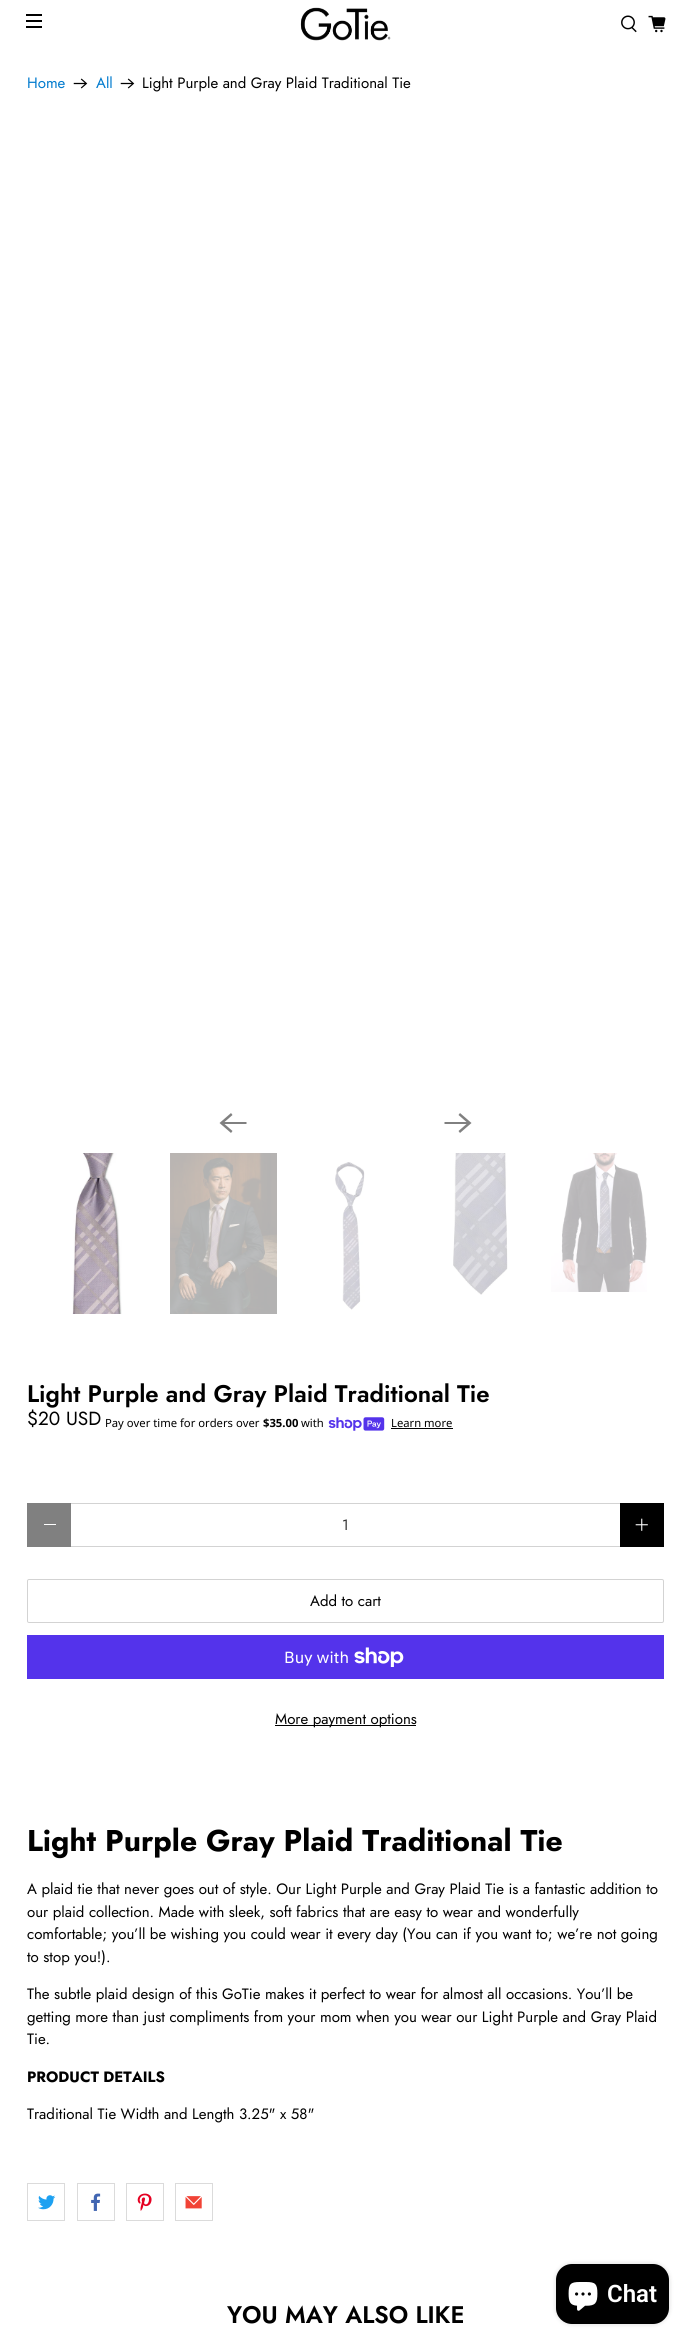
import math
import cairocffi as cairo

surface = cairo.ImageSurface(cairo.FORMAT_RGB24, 691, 2345)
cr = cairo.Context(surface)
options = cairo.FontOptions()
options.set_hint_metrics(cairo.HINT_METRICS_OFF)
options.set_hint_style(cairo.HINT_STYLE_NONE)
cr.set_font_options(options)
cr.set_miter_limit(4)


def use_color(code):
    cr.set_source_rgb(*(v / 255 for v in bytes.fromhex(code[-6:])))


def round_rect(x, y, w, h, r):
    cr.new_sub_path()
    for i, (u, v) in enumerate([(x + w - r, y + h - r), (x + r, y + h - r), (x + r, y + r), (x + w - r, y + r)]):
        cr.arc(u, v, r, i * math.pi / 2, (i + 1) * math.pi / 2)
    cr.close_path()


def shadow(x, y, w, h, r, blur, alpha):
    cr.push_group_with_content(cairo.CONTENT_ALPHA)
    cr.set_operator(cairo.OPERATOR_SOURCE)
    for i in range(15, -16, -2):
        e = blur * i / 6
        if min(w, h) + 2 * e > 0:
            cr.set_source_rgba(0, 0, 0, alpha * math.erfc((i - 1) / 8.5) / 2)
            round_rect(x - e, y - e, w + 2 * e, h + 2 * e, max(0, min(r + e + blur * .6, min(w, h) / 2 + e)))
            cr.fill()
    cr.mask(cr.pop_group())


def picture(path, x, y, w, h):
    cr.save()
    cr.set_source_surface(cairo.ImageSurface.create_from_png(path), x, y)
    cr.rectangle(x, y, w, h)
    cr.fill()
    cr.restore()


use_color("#ffffff")
cr.paint()
use_color("#000000")
cr.rectangle(26, 14, 16, 2)
cr.fill()
cr.rectangle(26, 20, 16, 2)
cr.fill()
cr.rectangle(26, 26, 16, 2)
cr.fill()
picture("img1.png", 300, 7, 91, 34)
picture("img2.png", 621, 15, 16, 18)
picture("img3.png", 648, 15, 18, 18)
cr.select_font_face("Jost")
cr.set_font_size(15)
use_color("#007ace")
cr.move_to(27, 88)
cr.show_text("Home")
picture("img4.png", 73, 78, 15, 11)
cr.move_to(96, 88)
cr.show_text("All")
picture("img4.png", 120, 78, 15, 11)
use_color("#000000")
cr.move_to(142, 88)
cr.show_text("Light Purple and Gray Plaid Traditional Tie")
use_color("#808080")
cr.new_path()
cr.move_to(246.5, 1122)
cr.line_to(224.5, 1122)
cr.line_to(232.5, 1115)
cr.line_to(231, 1113)
cr.line_to(219.5, 1123)
cr.line_to(231, 1133)
cr.line_to(232.5, 1131)
cr.line_to(224.5, 1124)
cr.line_to(246.5, 1124)
cr.close_path()
cr.fill()
cr.new_path()
cr.move_to(444.5, 1124)
cr.line_to(466.5, 1124)
cr.line_to(458.5, 1131)
cr.line_to(460, 1133)
cr.line_to(471.5, 1123)
cr.line_to(460, 1113)
cr.line_to(458.5, 1115)
cr.line_to(466.5, 1122)
cr.line_to(444.5, 1122)
cr.close_path()
cr.fill()
picture("img5.png", 72, 1153, 50, 161)
picture("img6.png", 170, 1153, 107, 161)
picture("img7.png", 335, 1162, 30, 148)
picture("img8.png", 453, 1153, 55, 142)
picture("img9.png", 551, 1153, 96, 139)
cr.select_font_face("Jost SemiBold")
cr.set_font_size(24)
use_color("#000000")
cr.move_to(27, 1402)
cr.show_text("Light Purple and Gray Plaid Traditional Tie")
cr.select_font_face("Jost")
cr.set_font_size(19)
cr.move_to(27, 1425)
cr.show_text("$20 USD")
cr.select_font_face("Noto Sans")
cr.set_font_size(11.25)
cr.move_to(105, 1427)
cr.show_text("Pay over time for orders over")
cr.select_font_face("Noto Sans", cairo.FONT_SLANT_NORMAL, cairo.FONT_WEIGHT_BOLD)
cr.move_to(263, 1427)
cr.show_text("$35.00")
cr.select_font_face("Noto Sans")
cr.move_to(301, 1427)
cr.show_text("with")
picture("img10.png", 328, 1417, 57, 14)
cr.move_to(391, 1427)
cr.show_text("Learn more")
cr.rectangle(391, 1428, 62, 1)
cr.fill()
use_color("#808080")
cr.rectangle(27, 1503, 44, 44)
cr.fill()
use_color("#ffffff")
cr.rectangle(44, 1524, 12, 1)
cr.fill()
use_color("#d3d3d3")
cr.rectangle(71, 1503, 549, 1)
cr.fill()
cr.rectangle(71, 1546, 549, 1)
cr.fill()
cr.select_font_face("Jost")
cr.set_font_size(15)
use_color("#363636")
cr.move_to(342, 1530)
cr.show_text("1")
use_color("#000000")
cr.rectangle(620, 1503, 44, 44)
cr.fill()
picture("img11.png", 635, 1518, 13, 13)
round_rect(27.5, 1579.5, 636, 43, 1.5)
use_color("#d3d3d3")
cr.set_line_width(1)
cr.stroke()
use_color("#000000")
cr.move_to(310, 1606)
cr.show_text("Add to cart")
use_color("#5433eb")
cr.rectangle(27, 1635, 637, 44)
cr.fill()
cr.select_font_face("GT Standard")
cr.set_font_size(16)
use_color("#ffffff")
cr.move_to(284, 1663)
cr.show_text("Buy with")
picture("img12.png", 354, 1647, 50, 20)
use_color("#000000")
cr.rectangle(275, 1725, 141, 1)
cr.fill()
cr.select_font_face("Jost")
cr.set_font_size(15)
cr.move_to(275, 1724)
cr.show_text("More payment options")
cr.select_font_face("Jost", cairo.FONT_SLANT_NORMAL, cairo.FONT_WEIGHT_BOLD)
cr.set_font_size(30)
cr.move_to(27, 1851)
cr.show_text("Light Purple Gray Plaid Traditional Tie")
cr.select_font_face("Jost")
cr.set_font_size(15)
cr.move_to(27, 1894)
cr.show_text("A plaid tie that never goes out of style. Our Light Purple and Gray Plaid Tie is a fantastic addition to")
cr.move_to(27, 1917)
cr.show_text("our plaid collection. Made with sleek, soft fabrics that are easy to wear and wonderfully")
cr.move_to(27, 1939)
cr.show_text("comfortable; you’ll be wishing you could wear it every day (You can if you want to; we’re not going")
cr.move_to(27, 1962)
cr.show_text("to stop you!).")
cr.move_to(27, 1999)
cr.show_text("The subtle plaid design of this GoTie makes it perfect to wear for almost all occasions. You’ll be")
cr.move_to(27, 2022)
cr.show_text("getting more than just compliments from your mom when you wear our Light Purple and Gray Plaid")
cr.move_to(27, 2044)
cr.show_text("Tie.")
cr.select_font_face("Jost", cairo.FONT_SLANT_NORMAL, cairo.FONT_WEIGHT_BOLD)
cr.move_to(27, 2082)
cr.show_text("PRODUCT DETAILS")
cr.select_font_face("Jost")
cr.move_to(27, 2119)
cr.show_text("Traditional Tie Width and Length 3.25\" x 58\"")
cr.rectangle(27.5, 2183.5, 37, 37)
use_color("#dbdbdb")
cr.stroke()
picture("img13.png", 38, 2195, 18, 15)
cr.rectangle(77.5, 2183.5, 37, 37)
cr.stroke()
picture("img14.png", 91, 2193, 10, 18)
cr.rectangle(126.5, 2183.5, 37, 37)
cr.stroke()
picture("img15.png", 137, 2193, 15, 18)
cr.rectangle(175.5, 2183.5, 37, 37)
cr.stroke()
picture("img16.png", 185, 2196, 17, 13)
cr.select_font_face("Jost SemiBold")
cr.set_font_size(24)
use_color("#000000")
cr.move_to(227, 2323)
cr.show_text("YOU MAY ALSO LIKE")
use_color("#000000")
shadow(556, 2264, 113, 60, 16, 2.5, 0.15)
use_color("#000000")
round_rect(556, 2264, 113, 60, 16)
cr.fill()
picture("img17.png", 568, 2282, 30, 29)
cr.select_font_face("Roboto SemiBold")
use_color("#ffffff")
cr.move_to(607, 2302)
cr.show_text("Chat")
surface.write_to_png("result.png")
